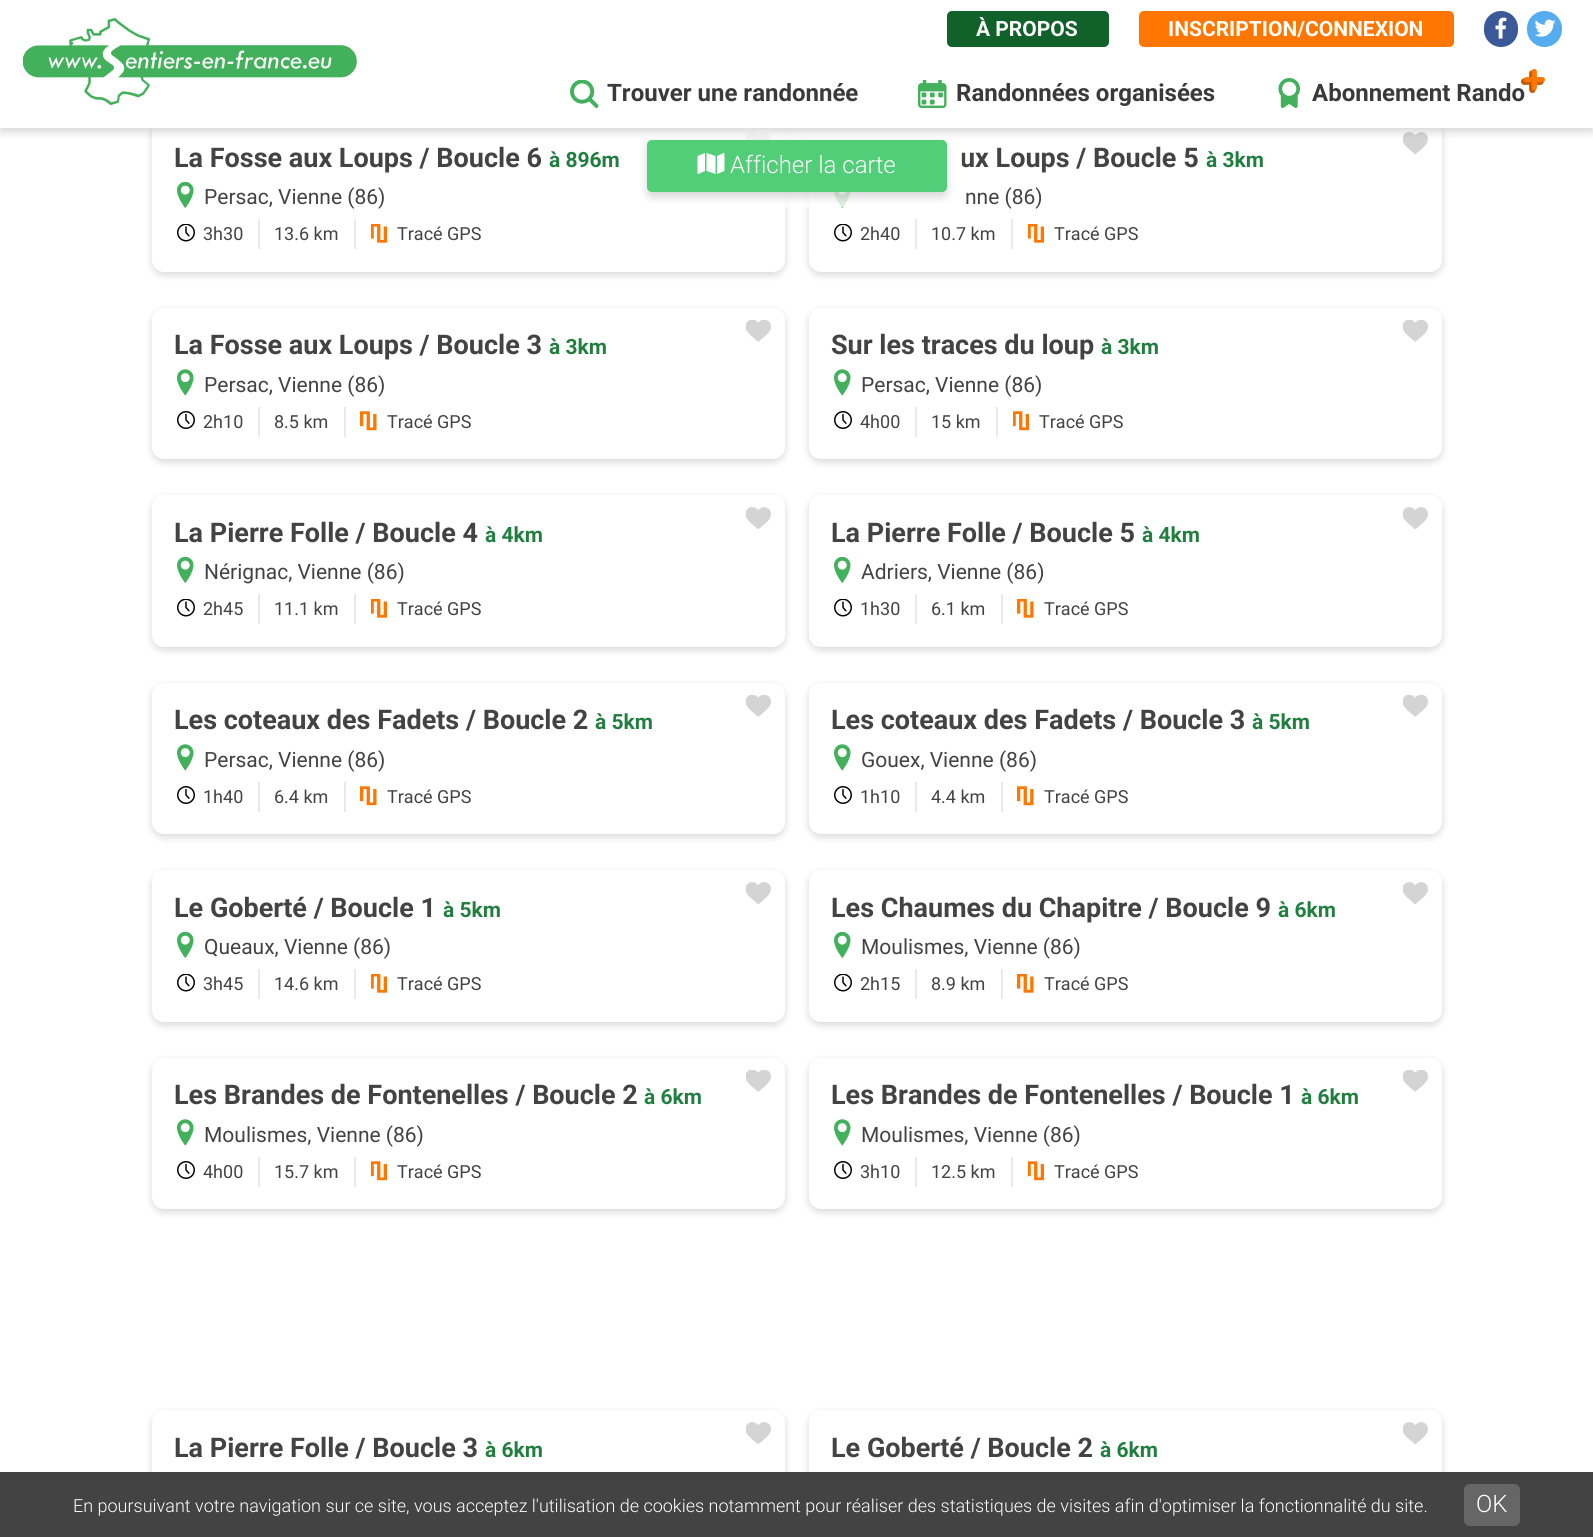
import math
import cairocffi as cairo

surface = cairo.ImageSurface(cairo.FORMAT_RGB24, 1593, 1537)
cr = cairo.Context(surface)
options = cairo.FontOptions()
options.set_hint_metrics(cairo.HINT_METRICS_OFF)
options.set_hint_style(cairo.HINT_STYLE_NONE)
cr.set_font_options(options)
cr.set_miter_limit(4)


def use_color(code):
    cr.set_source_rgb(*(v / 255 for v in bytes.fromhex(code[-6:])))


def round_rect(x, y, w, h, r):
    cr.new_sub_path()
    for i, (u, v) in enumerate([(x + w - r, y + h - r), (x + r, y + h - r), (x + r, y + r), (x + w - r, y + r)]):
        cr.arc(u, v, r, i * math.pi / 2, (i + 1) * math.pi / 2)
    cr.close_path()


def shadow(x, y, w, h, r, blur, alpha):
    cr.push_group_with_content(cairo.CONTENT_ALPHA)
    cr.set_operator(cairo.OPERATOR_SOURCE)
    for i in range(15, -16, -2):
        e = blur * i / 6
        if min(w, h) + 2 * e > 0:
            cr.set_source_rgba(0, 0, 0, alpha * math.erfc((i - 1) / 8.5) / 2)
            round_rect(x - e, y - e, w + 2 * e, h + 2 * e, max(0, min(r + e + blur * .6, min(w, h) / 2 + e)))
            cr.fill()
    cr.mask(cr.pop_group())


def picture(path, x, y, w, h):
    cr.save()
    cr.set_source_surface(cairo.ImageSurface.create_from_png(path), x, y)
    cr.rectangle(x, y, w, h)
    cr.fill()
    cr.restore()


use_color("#ffffff")
cr.paint()
use_color("#000000")
shadow(152, 123, 633, 152, 12, 4, 0.16)
use_color("#ffffff")
round_rect(152, 120, 633, 152, 12)
cr.fill()
picture("img8.png", 746, 132, 25, 8)
use_color("#000000")
shadow(809, 123, 633, 152, 12, 4, 0.16)
use_color("#ffffff")
round_rect(809, 120, 633, 152, 12)
cr.fill()
picture("img12.png", 1403, 132, 25, 23)
cr.select_font_face("Roboto", cairo.FONT_SLANT_NORMAL, cairo.FONT_WEIGHT_BOLD)
cr.set_font_size(27)
use_color("#434343")
cr.move_to(960, 167)
cr.show_text("ux Loups / Boucle 5")
picture("img13.png", 834, 192, 17, 17)
cr.set_source_rgba(1, 1, 1, 0.8)
cr.rectangle(746, 128, 216, 79)
cr.fill()
use_color("#000000")
shadow(647, 144, 300, 53, 5, 4.5, 0.16)
use_color("#52ce79")
round_rect(647, 140, 300, 52, 5)
cr.fill()
use_color("#000000")
shadow(0, 5, 1593, 127, 0, 4.5, 0.16)
use_color("#ffffff")
cr.rectangle(0, 0, 1593, 128)
cr.fill()
picture("img1.png", 23, 18, 334, 87)
use_color("#11612b")
round_rect(947, 11, 162, 36, 5)
cr.fill()
cr.set_font_size(21)
use_color("#ffffff")
cr.move_to(976, 36)
cr.show_text("À PROPOS")
use_color("#ff7700")
round_rect(1139, 11, 315, 36, 5)
cr.fill()
use_color("#ffffff")
cr.move_to(1168, 36)
cr.show_text("INSCRIPTION/CONNEXION")
use_color("#3b5998")
round_rect(1484, 11, 34, 36, 17)
cr.fill()
picture("img2.png", 1495, 17, 12, 22)
use_color("#55acee")
round_rect(1527, 11, 35, 36, 17.5)
cr.fill()
picture("img3.png", 1534, 19, 22, 18)
picture("img4.png", 570, 80, 29, 28)
cr.set_font_size(24)
use_color("#3a3a3a")
cr.move_to(607, 101)
cr.show_text("Trouver une randonnée")
picture("img5.png", 918, 80, 29, 28)
cr.move_to(956, 101)
cr.show_text("Randonnées organisées")
picture("img6.png", 1278, 78, 23, 30)
cr.move_to(1312, 101)
cr.show_text("Abonnement Rando")
picture("img7.png", 1521, 69, 24, 24)
cr.set_font_size(27)
use_color("#434343")
cr.move_to(174, 167)
cr.show_text("La Fosse aux Loups / Boucle 6")
cr.set_font_size(21)
use_color("#207f3e")
cr.move_to(549, 167)
cr.show_text("à 896m")
picture("img9.png", 177, 182, 17, 27)
cr.select_font_face("Roboto")
use_color("#434343")
cr.move_to(204, 204)
cr.show_text("Persac, Vienne (86)")
picture("img10.png", 177, 224, 18, 18)
cr.set_font_size(18)
cr.move_to(203, 240)
cr.show_text("3h30")
use_color("#e9e9e9")
cr.rectangle(258, 219, 2, 30)
cr.fill()
use_color("#434343")
cr.move_to(274, 240)
cr.show_text("13.6 km")
picture("img11.png", 371, 224, 16, 19)
use_color("#e9e9e9")
cr.rectangle(354, 219, 2, 30)
cr.fill()
use_color("#434343")
cr.move_to(397, 240)
cr.show_text("Tracé GPS")
cr.select_font_face("Roboto", cairo.FONT_SLANT_NORMAL, cairo.FONT_WEIGHT_BOLD)
cr.set_font_size(21)
use_color("#207f3e")
cr.move_to(1206, 167)
cr.show_text("à 3km")
cr.select_font_face("Roboto")
use_color("#434343")
cr.move_to(965, 204)
cr.show_text("nne (86)")
picture("img10.png", 834, 224, 18, 18)
cr.set_font_size(18)
cr.move_to(860, 240)
cr.show_text("2h40")
use_color("#e9e9e9")
cr.rectangle(915, 219, 2, 30)
cr.fill()
use_color("#434343")
cr.move_to(931, 240)
cr.show_text("10.7 km")
picture("img11.png", 1028, 224, 16, 19)
use_color("#e9e9e9")
cr.rectangle(1011, 219, 2, 30)
cr.fill()
use_color("#434343")
cr.move_to(1054, 240)
cr.show_text("Tracé GPS")
use_color("#000000")
shadow(152, 311, 633, 151, 12, 4, 0.16)
use_color("#ffffff")
round_rect(152, 308, 633, 151, 12)
cr.fill()
cr.select_font_face("Roboto", cairo.FONT_SLANT_NORMAL, cairo.FONT_WEIGHT_BOLD)
cr.set_font_size(27)
use_color("#434343")
cr.move_to(174, 354)
cr.show_text("La Fosse aux Loups / Boucle 3")
cr.set_font_size(21)
use_color("#207f3e")
cr.move_to(549, 354)
cr.show_text("à 3km")
picture("img14.png", 177, 369, 17, 27)
cr.select_font_face("Roboto")
use_color("#434343")
cr.move_to(204, 392)
cr.show_text("Persac, Vienne (86)")
picture("img15.png", 177, 411, 18, 18)
cr.set_font_size(18)
cr.move_to(203, 428)
cr.show_text("2h10")
use_color("#e9e9e9")
cr.rectangle(258, 407, 2, 30)
cr.fill()
use_color("#434343")
cr.move_to(274, 428)
cr.show_text("8.5 km")
picture("img16.png", 360, 411, 17, 20)
use_color("#e9e9e9")
cr.rectangle(344, 407, 2, 30)
cr.fill()
use_color("#434343")
cr.move_to(387, 428)
cr.show_text("Tracé GPS")
picture("img17.png", 746, 320, 25, 22)
use_color("#000000")
shadow(809, 311, 633, 151, 12, 4, 0.16)
use_color("#ffffff")
round_rect(809, 308, 633, 151, 12)
cr.fill()
cr.select_font_face("Roboto", cairo.FONT_SLANT_NORMAL, cairo.FONT_WEIGHT_BOLD)
cr.set_font_size(27)
use_color("#434343")
cr.move_to(831, 354)
cr.show_text("Sur les traces du loup")
cr.set_font_size(21)
use_color("#207f3e")
cr.move_to(1101, 354)
cr.show_text("à 3km")
picture("img14.png", 834, 369, 17, 27)
cr.select_font_face("Roboto")
use_color("#434343")
cr.move_to(861, 392)
cr.show_text("Persac, Vienne (86)")
picture("img15.png", 834, 411, 18, 18)
cr.set_font_size(18)
cr.move_to(860, 428)
cr.show_text("4h00")
use_color("#e9e9e9")
cr.rectangle(915, 407, 2, 30)
cr.fill()
use_color("#434343")
cr.move_to(931, 428)
cr.show_text("15 km")
picture("img18.png", 1013, 411, 16, 20)
use_color("#e9e9e9")
cr.rectangle(996, 407, 2, 30)
cr.fill()
use_color("#434343")
cr.move_to(1039, 428)
cr.show_text("Tracé GPS")
picture("img17.png", 1403, 320, 25, 22)
use_color("#000000")
shadow(152, 498, 633, 152, 12, 4, 0.16)
use_color("#ffffff")
round_rect(152, 495, 633, 152, 12)
cr.fill()
picture("img12.png", 746, 507, 25, 23)
cr.select_font_face("Roboto", cairo.FONT_SLANT_NORMAL, cairo.FONT_WEIGHT_BOLD)
cr.set_font_size(27)
use_color("#434343")
cr.move_to(174, 542)
cr.show_text("La Pierre Folle / Boucle 4")
cr.set_font_size(21)
use_color("#207f3e")
cr.move_to(485, 542)
cr.show_text("à 4km")
picture("img9.png", 177, 557, 17, 27)
cr.select_font_face("Roboto")
use_color("#434343")
cr.move_to(204, 579)
cr.show_text("Nérignac, Vienne (86)")
picture("img10.png", 177, 599, 18, 18)
cr.set_font_size(18)
cr.move_to(203, 615)
cr.show_text("2h45")
use_color("#e9e9e9")
cr.rectangle(258, 594, 2, 30)
cr.fill()
use_color("#434343")
cr.move_to(274, 615)
cr.show_text("11.1 km")
picture("img11.png", 371, 599, 16, 19)
use_color("#e9e9e9")
cr.rectangle(354, 594, 2, 30)
cr.fill()
use_color("#434343")
cr.move_to(397, 615)
cr.show_text("Tracé GPS")
use_color("#000000")
shadow(809, 498, 633, 152, 12, 4, 0.16)
use_color("#ffffff")
round_rect(809, 495, 633, 152, 12)
cr.fill()
picture("img12.png", 1403, 507, 25, 23)
cr.select_font_face("Roboto", cairo.FONT_SLANT_NORMAL, cairo.FONT_WEIGHT_BOLD)
cr.set_font_size(27)
use_color("#434343")
cr.move_to(831, 542)
cr.show_text("La Pierre Folle / Boucle 5")
cr.set_font_size(21)
use_color("#207f3e")
cr.move_to(1142, 542)
cr.show_text("à 4km")
picture("img9.png", 834, 557, 17, 27)
cr.select_font_face("Roboto")
use_color("#434343")
cr.move_to(861, 579)
cr.show_text("Adriers, Vienne (86)")
picture("img10.png", 834, 599, 18, 18)
cr.set_font_size(18)
cr.move_to(860, 615)
cr.show_text("1h30")
use_color("#e9e9e9")
cr.rectangle(915, 594, 2, 30)
cr.fill()
use_color("#434343")
cr.move_to(931, 615)
cr.show_text("6.1 km")
picture("img19.png", 1017, 599, 17, 19)
use_color("#e9e9e9")
cr.rectangle(1001, 594, 2, 30)
cr.fill()
use_color("#434343")
cr.move_to(1044, 615)
cr.show_text("Tracé GPS")
use_color("#000000")
shadow(152, 686, 633, 151, 12, 4, 0.16)
use_color("#ffffff")
round_rect(152, 683, 633, 151, 12)
cr.fill()
cr.select_font_face("Roboto", cairo.FONT_SLANT_NORMAL, cairo.FONT_WEIGHT_BOLD)
cr.set_font_size(27)
use_color("#434343")
cr.move_to(174, 729)
cr.show_text("Les coteaux des Fadets / Boucle 2")
cr.set_font_size(21)
use_color("#207f3e")
cr.move_to(595, 729)
cr.show_text("à 5km")
picture("img14.png", 177, 744, 17, 27)
cr.select_font_face("Roboto")
use_color("#434343")
cr.move_to(204, 767)
cr.show_text("Persac, Vienne (86)")
picture("img15.png", 177, 786, 18, 18)
cr.set_font_size(18)
cr.move_to(203, 803)
cr.show_text("1h40")
use_color("#e9e9e9")
cr.rectangle(258, 782, 2, 30)
cr.fill()
use_color("#434343")
cr.move_to(274, 803)
cr.show_text("6.4 km")
picture("img16.png", 360, 786, 17, 20)
use_color("#e9e9e9")
cr.rectangle(344, 782, 2, 30)
cr.fill()
use_color("#434343")
cr.move_to(387, 803)
cr.show_text("Tracé GPS")
picture("img17.png", 746, 695, 25, 22)
use_color("#000000")
shadow(809, 686, 633, 151, 12, 4, 0.16)
use_color("#ffffff")
round_rect(809, 683, 633, 151, 12)
cr.fill()
cr.select_font_face("Roboto", cairo.FONT_SLANT_NORMAL, cairo.FONT_WEIGHT_BOLD)
cr.set_font_size(27)
use_color("#434343")
cr.move_to(831, 729)
cr.show_text("Les coteaux des Fadets / Boucle 3")
cr.set_font_size(21)
use_color("#207f3e")
cr.move_to(1252, 729)
cr.show_text("à 5km")
picture("img14.png", 834, 744, 17, 27)
cr.select_font_face("Roboto")
use_color("#434343")
cr.move_to(861, 767)
cr.show_text("Gouex, Vienne (86)")
picture("img15.png", 834, 786, 18, 18)
cr.set_font_size(18)
cr.move_to(860, 803)
cr.show_text("1h10")
use_color("#e9e9e9")
cr.rectangle(915, 782, 2, 30)
cr.fill()
use_color("#434343")
cr.move_to(931, 803)
cr.show_text("4.4 km")
picture("img16.png", 1017, 786, 17, 20)
use_color("#e9e9e9")
cr.rectangle(1001, 782, 2, 30)
cr.fill()
use_color("#434343")
cr.move_to(1044, 803)
cr.show_text("Tracé GPS")
picture("img17.png", 1403, 695, 25, 22)
use_color("#000000")
shadow(152, 873, 633, 152, 12, 4, 0.16)
use_color("#ffffff")
round_rect(152, 870, 633, 152, 12)
cr.fill()
picture("img12.png", 746, 882, 25, 23)
cr.select_font_face("Roboto", cairo.FONT_SLANT_NORMAL, cairo.FONT_WEIGHT_BOLD)
cr.set_font_size(27)
use_color("#434343")
cr.move_to(174, 917)
cr.show_text("Le Goberté / Boucle 1")
cr.set_font_size(21)
use_color("#207f3e")
cr.move_to(443, 917)
cr.show_text("à 5km")
picture("img9.png", 177, 932, 17, 27)
cr.select_font_face("Roboto")
use_color("#434343")
cr.move_to(204, 954)
cr.show_text("Queaux, Vienne (86)")
picture("img10.png", 177, 974, 18, 18)
cr.set_font_size(18)
cr.move_to(203, 990)
cr.show_text("3h45")
use_color("#e9e9e9")
cr.rectangle(258, 969, 2, 30)
cr.fill()
use_color("#434343")
cr.move_to(274, 990)
cr.show_text("14.6 km")
picture("img11.png", 371, 974, 16, 19)
use_color("#e9e9e9")
cr.rectangle(354, 969, 2, 30)
cr.fill()
use_color("#434343")
cr.move_to(397, 990)
cr.show_text("Tracé GPS")
use_color("#000000")
shadow(809, 873, 633, 152, 12, 4, 0.16)
use_color("#ffffff")
round_rect(809, 870, 633, 152, 12)
cr.fill()
picture("img12.png", 1403, 882, 25, 23)
cr.select_font_face("Roboto", cairo.FONT_SLANT_NORMAL, cairo.FONT_WEIGHT_BOLD)
cr.set_font_size(27)
use_color("#434343")
cr.move_to(831, 917)
cr.show_text("Les Chaumes du Chapitre / Boucle 9")
cr.set_font_size(21)
use_color("#207f3e")
cr.move_to(1278, 917)
cr.show_text("à 6km")
picture("img9.png", 834, 932, 17, 27)
cr.select_font_face("Roboto")
use_color("#434343")
cr.move_to(861, 954)
cr.show_text("Moulismes, Vienne (86)")
picture("img10.png", 834, 974, 18, 18)
cr.set_font_size(18)
cr.move_to(860, 990)
cr.show_text("2h15")
use_color("#e9e9e9")
cr.rectangle(915, 969, 2, 30)
cr.fill()
use_color("#434343")
cr.move_to(931, 990)
cr.show_text("8.9 km")
picture("img19.png", 1017, 974, 17, 19)
use_color("#e9e9e9")
cr.rectangle(1001, 969, 2, 30)
cr.fill()
use_color("#434343")
cr.move_to(1044, 990)
cr.show_text("Tracé GPS")
use_color("#000000")
shadow(152, 1061, 633, 151, 12, 4, 0.16)
use_color("#ffffff")
round_rect(152, 1058, 633, 151, 12)
cr.fill()
cr.select_font_face("Roboto", cairo.FONT_SLANT_NORMAL, cairo.FONT_WEIGHT_BOLD)
cr.set_font_size(27)
use_color("#434343")
cr.move_to(174, 1104)
cr.show_text("Les Brandes de Fontenelles / Boucle 2")
cr.set_font_size(21)
use_color("#207f3e")
cr.move_to(644, 1104)
cr.show_text("à 6km")
picture("img14.png", 177, 1119, 17, 27)
cr.select_font_face("Roboto")
use_color("#434343")
cr.move_to(204, 1142)
cr.show_text("Moulismes, Vienne (86)")
picture("img15.png", 177, 1161, 18, 18)
cr.set_font_size(18)
cr.move_to(203, 1178)
cr.show_text("4h00")
use_color("#e9e9e9")
cr.rectangle(258, 1157, 2, 30)
cr.fill()
use_color("#434343")
cr.move_to(274, 1178)
cr.show_text("15.7 km")
picture("img18.png", 371, 1161, 16, 20)
use_color("#e9e9e9")
cr.rectangle(354, 1157, 2, 30)
cr.fill()
use_color("#434343")
cr.move_to(397, 1178)
cr.show_text("Tracé GPS")
picture("img17.png", 746, 1070, 25, 22)
use_color("#000000")
shadow(809, 1061, 633, 151, 12, 4, 0.16)
use_color("#ffffff")
round_rect(809, 1058, 633, 151, 12)
cr.fill()
cr.select_font_face("Roboto", cairo.FONT_SLANT_NORMAL, cairo.FONT_WEIGHT_BOLD)
cr.set_font_size(27)
use_color("#434343")
cr.move_to(831, 1104)
cr.show_text("Les Brandes de Fontenelles / Boucle 1")
cr.set_font_size(21)
use_color("#207f3e")
cr.move_to(1301, 1104)
cr.show_text("à 6km")
picture("img14.png", 834, 1119, 17, 27)
cr.select_font_face("Roboto")
use_color("#434343")
cr.move_to(861, 1142)
cr.show_text("Moulismes, Vienne (86)")
picture("img15.png", 834, 1161, 18, 18)
cr.set_font_size(18)
cr.move_to(860, 1178)
cr.show_text("3h10")
use_color("#e9e9e9")
cr.rectangle(915, 1157, 2, 30)
cr.fill()
use_color("#434343")
cr.move_to(931, 1178)
cr.show_text("12.5 km")
picture("img18.png", 1028, 1161, 16, 20)
use_color("#e9e9e9")
cr.rectangle(1011, 1157, 2, 30)
cr.fill()
use_color("#434343")
cr.move_to(1054, 1178)
cr.show_text("Tracé GPS")
picture("img17.png", 1403, 1070, 25, 22)
use_color("#000000")
shadow(152, 1413, 633, 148, 12, 4, 0.16)
use_color("#ffffff")
round_rect(152, 1410, 633, 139, 12)
cr.fill()
picture("img12.png", 746, 1422, 25, 23)
cr.select_font_face("Roboto", cairo.FONT_SLANT_NORMAL, cairo.FONT_WEIGHT_BOLD)
cr.set_font_size(27)
use_color("#434343")
cr.move_to(174, 1457)
cr.show_text("La Pierre Folle / Boucle 3")
cr.set_font_size(21)
use_color("#207f3e")
cr.move_to(485, 1457)
cr.show_text("à 6km")
use_color("#000000")
shadow(809, 1413, 633, 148, 12, 4, 0.16)
use_color("#ffffff")
round_rect(809, 1410, 633, 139, 12)
cr.fill()
picture("img12.png", 1403, 1422, 25, 23)
cr.set_font_size(27)
use_color("#434343")
cr.move_to(831, 1457)
cr.show_text("Le Goberté / Boucle 2")
cr.set_font_size(21)
use_color("#207f3e")
cr.move_to(1100, 1457)
cr.show_text("à 6km")
picture("img20.png", 697, 153, 28, 21)
cr.select_font_face("Roboto Light")
cr.set_font_size(24)
use_color("#ffffff")
cr.move_to(730, 173)
cr.show_text("Afficher la carte")
use_color("#434343")
cr.rectangle(0, 1472, 1593, 65)
cr.fill()
cr.set_font_size(18)
use_color("#ffffff")
cr.move_to(73, 1512)
cr.show_text("En poursuivant votre navigation sur ce site, vous acceptez l'utilisation de cookies notamment pour réaliser des statistiques de visites afin d'optimiser la fonctionnalité du site.")
use_color("#666666")
round_rect(1464, 1484, 56, 42, 6)
cr.fill()
cr.set_font_size(24)
use_color("#ffffff")
cr.move_to(1476, 1512)
cr.show_text("OK")
surface.write_to_png("result.png")
